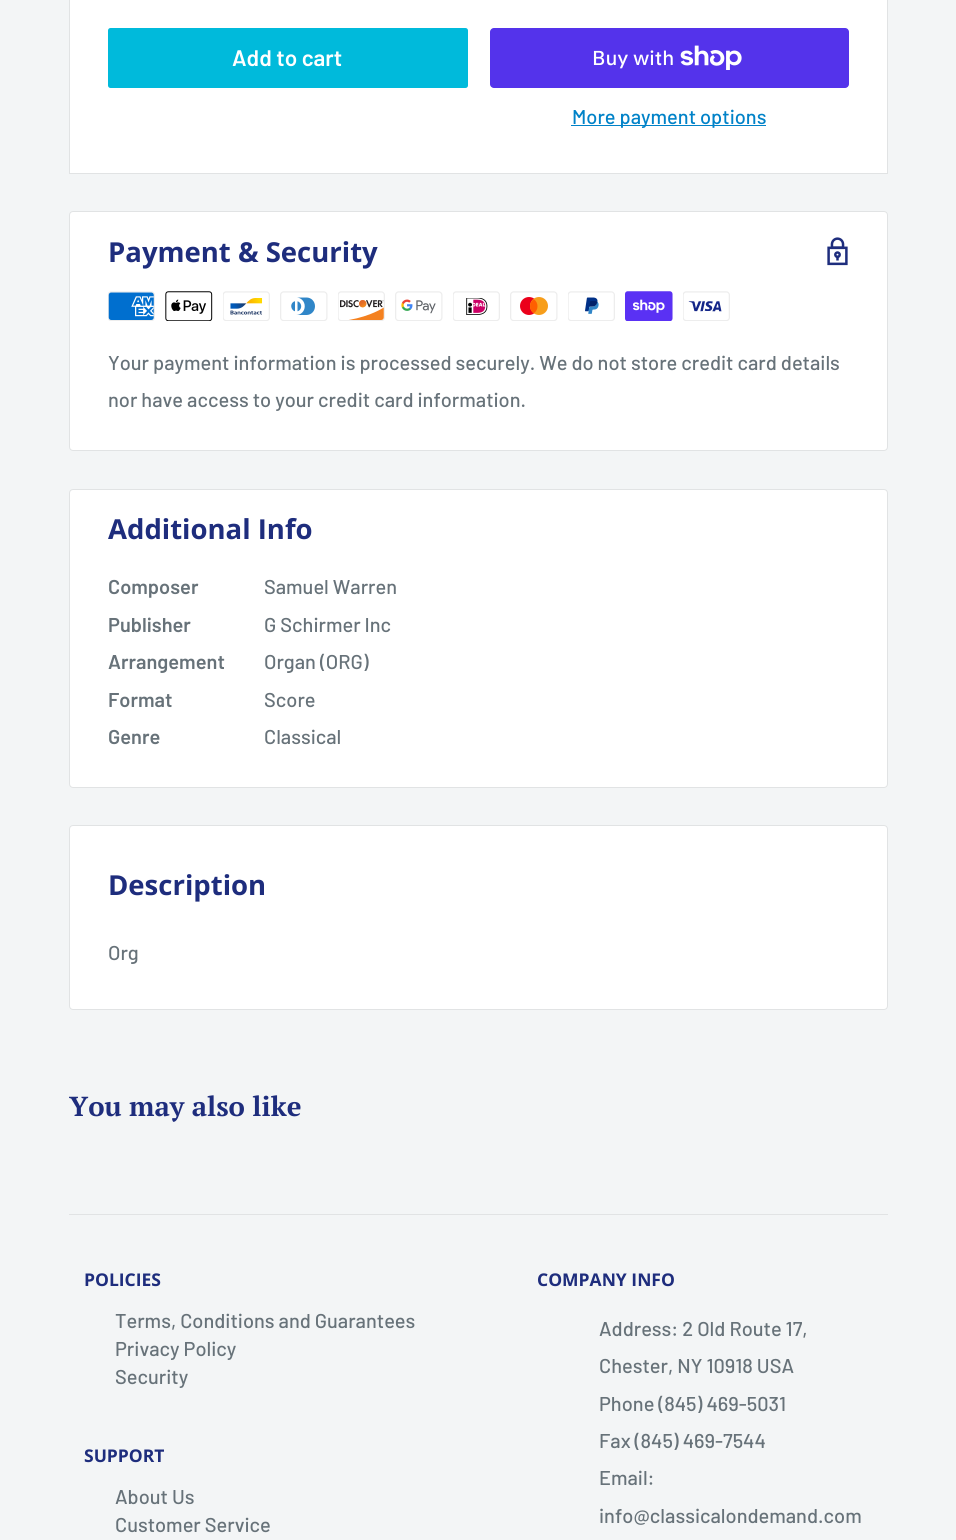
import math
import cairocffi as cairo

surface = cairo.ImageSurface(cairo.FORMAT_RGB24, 956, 1540)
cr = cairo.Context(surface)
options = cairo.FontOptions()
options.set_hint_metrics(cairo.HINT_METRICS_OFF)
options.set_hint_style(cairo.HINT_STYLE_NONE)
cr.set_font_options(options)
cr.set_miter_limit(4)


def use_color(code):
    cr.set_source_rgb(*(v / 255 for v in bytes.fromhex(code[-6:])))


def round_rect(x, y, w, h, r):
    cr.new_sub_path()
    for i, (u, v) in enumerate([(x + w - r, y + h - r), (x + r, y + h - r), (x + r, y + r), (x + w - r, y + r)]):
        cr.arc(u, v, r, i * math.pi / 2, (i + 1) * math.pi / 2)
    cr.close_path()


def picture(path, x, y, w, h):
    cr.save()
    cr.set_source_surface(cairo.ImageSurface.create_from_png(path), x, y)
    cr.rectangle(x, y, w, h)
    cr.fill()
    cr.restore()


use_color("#f3f5f6")
cr.paint()
use_color("#ffffff")
cr.rectangle(69.5, -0.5, 818, 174)
cr.fill_preserve()
use_color("#e1e3e4")
cr.set_line_width(1)
cr.stroke()
use_color("#00badb")
round_rect(108, 28, 360, 60, 2.5)
cr.fill()
cr.select_font_face("Barlow SemiBold")
cr.set_font_size(22.5)
use_color("#ffffff")
cr.move_to(232, 66)
cr.show_text("Add to cart")
use_color("#5433eb")
round_rect(490, 28, 359, 60, 4)
cr.fill()
cr.select_font_face("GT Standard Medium")
cr.set_font_size(20)
use_color("#ffffff")
cr.move_to(592, 65)
cr.show_text("Buy with")
picture("img1.png", 680, 45, 62, 25)
use_color("#0082c8")
cr.rectangle(571, 125, 195, 1)
cr.fill()
cr.select_font_face("Barlow Medium")
cr.move_to(572, 124)
cr.show_text("More payment options")
use_color("#ffffff")
round_rect(69.5, 211.5, 818, 239, 3.5)
cr.fill_preserve()
use_color("#e1e3e4")
cr.stroke()
cr.select_font_face("Open Sans", cairo.FONT_SLANT_NORMAL, cairo.FONT_WEIGHT_BOLD)
cr.set_font_size(27.5)
use_color("#1e2d7d")
cr.move_to(108, 262)
cr.show_text("Payment & Security")
picture("img2.png", 827, 237, 21, 29)
picture("img3.png", 108, 291, 47, 30)
picture("img4.png", 165, 291, 48, 30)
picture("img5.png", 223, 291, 47, 30)
picture("img6.png", 280, 291, 48, 30)
picture("img7.png", 338, 291, 47, 30)
picture("img8.png", 395, 291, 48, 30)
picture("img9.png", 453, 291, 47, 30)
picture("img10.png", 510, 291, 48, 30)
picture("img11.png", 568, 291, 47, 30)
picture("img12.png", 625, 291, 48, 30)
picture("img13.png", 683, 291, 47, 30)
cr.select_font_face("Barlow Medium")
cr.set_font_size(20)
use_color("#677279")
cr.move_to(108, 370)
cr.show_text("Your payment information is processed securely. We do not store credit card details")
cr.move_to(108, 407)
cr.show_text("nor have access to your credit card information.")
use_color("#ffffff")
round_rect(69.5, 489.5, 818, 298, 3.5)
cr.fill_preserve()
use_color("#e1e3e4")
cr.stroke()
cr.select_font_face("Open Sans", cairo.FONT_SLANT_NORMAL, cairo.FONT_WEIGHT_BOLD)
cr.set_font_size(27.5)
use_color("#1e2d7d")
cr.move_to(108, 539)
cr.show_text("Additional Info")
cr.select_font_face("Barlow SemiBold")
cr.set_font_size(20)
use_color("#677279")
cr.move_to(108, 594)
cr.show_text("Composer")
cr.select_font_face("Barlow Medium")
cr.move_to(264, 594)
cr.show_text("Samuel Warren")
cr.select_font_face("Barlow SemiBold")
cr.move_to(108, 632)
cr.show_text("Publisher")
cr.select_font_face("Barlow Medium")
cr.move_to(264, 632)
cr.show_text("G Schirmer Inc")
cr.select_font_face("Barlow SemiBold")
cr.move_to(108, 669)
cr.show_text("Arrangement")
cr.select_font_face("Barlow Medium")
cr.move_to(264, 669)
cr.show_text("Organ (ORG)")
cr.select_font_face("Barlow SemiBold")
cr.move_to(108, 707)
cr.show_text("Format")
cr.select_font_face("Barlow Medium")
cr.move_to(264, 707)
cr.show_text("Score")
cr.select_font_face("Barlow SemiBold")
cr.move_to(108, 744)
cr.show_text("Genre")
cr.select_font_face("Barlow Medium")
cr.move_to(264, 744)
cr.show_text("Classical")
use_color("#ffffff")
round_rect(69.5, 825.5, 818, 184, 3.5)
cr.fill_preserve()
use_color("#e1e3e4")
cr.stroke()
cr.select_font_face("Open Sans", cairo.FONT_SLANT_NORMAL, cairo.FONT_WEIGHT_BOLD)
cr.set_font_size(27.5)
use_color("#1e2d7d")
cr.move_to(108, 895)
cr.show_text("Description")
cr.select_font_face("Barlow Medium")
cr.set_font_size(20)
use_color("#677279")
cr.move_to(108, 960)
cr.show_text("Org")
cr.select_font_face("PT Serif", cairo.FONT_SLANT_NORMAL, cairo.FONT_WEIGHT_BOLD)
cr.set_font_size(27.5)
use_color("#1e2d7d")
cr.move_to(69, 1116)
cr.show_text("You may also like")
use_color("#e1e3e4")
cr.rectangle(69, 1214, 819, 1)
cr.fill()
cr.select_font_face("Open Sans", cairo.FONT_SLANT_NORMAL, cairo.FONT_WEIGHT_BOLD)
cr.set_font_size(17.5)
use_color("#1e2d7d")
cr.move_to(84, 1286)
cr.show_text("POLICIES")
cr.select_font_face("Barlow Medium")
cr.set_font_size(20)
use_color("#677279")
cr.move_to(115, 1328)
cr.show_text("Terms, Conditions and Guarantees")
cr.move_to(115, 1356)
cr.show_text("Privacy Policy")
cr.move_to(115, 1384)
cr.show_text("Security")
cr.select_font_face("Open Sans", cairo.FONT_SLANT_NORMAL, cairo.FONT_WEIGHT_BOLD)
cr.set_font_size(17.5)
use_color("#1e2d7d")
cr.move_to(84, 1462)
cr.show_text("SUPPORT")
cr.select_font_face("Barlow Medium")
cr.set_font_size(20)
use_color("#677279")
cr.move_to(115, 1504)
cr.show_text("About Us")
cr.move_to(115, 1532)
cr.show_text("Customer Service")
cr.select_font_face("Open Sans", cairo.FONT_SLANT_NORMAL, cairo.FONT_WEIGHT_BOLD)
cr.set_font_size(17.5)
use_color("#1e2d7d")
cr.move_to(537, 1286)
cr.show_text("COMPANY INFO")
cr.select_font_face("Barlow Medium")
cr.set_font_size(20)
use_color("#677279")
cr.move_to(599, 1336)
cr.show_text("Address: 2 Old Route 17,")
cr.move_to(599, 1373)
cr.show_text("Chester, NY 10918 USA")
cr.move_to(599, 1411)
cr.show_text("Phone (845) 469-5031")
cr.move_to(599, 1448)
cr.show_text("Fax (845) 469-7544")
cr.move_to(599, 1485)
cr.show_text("Email:")
cr.move_to(599, 1523)
cr.show_text("info@classicalondemand.com")
surface.write_to_png("result.png")
